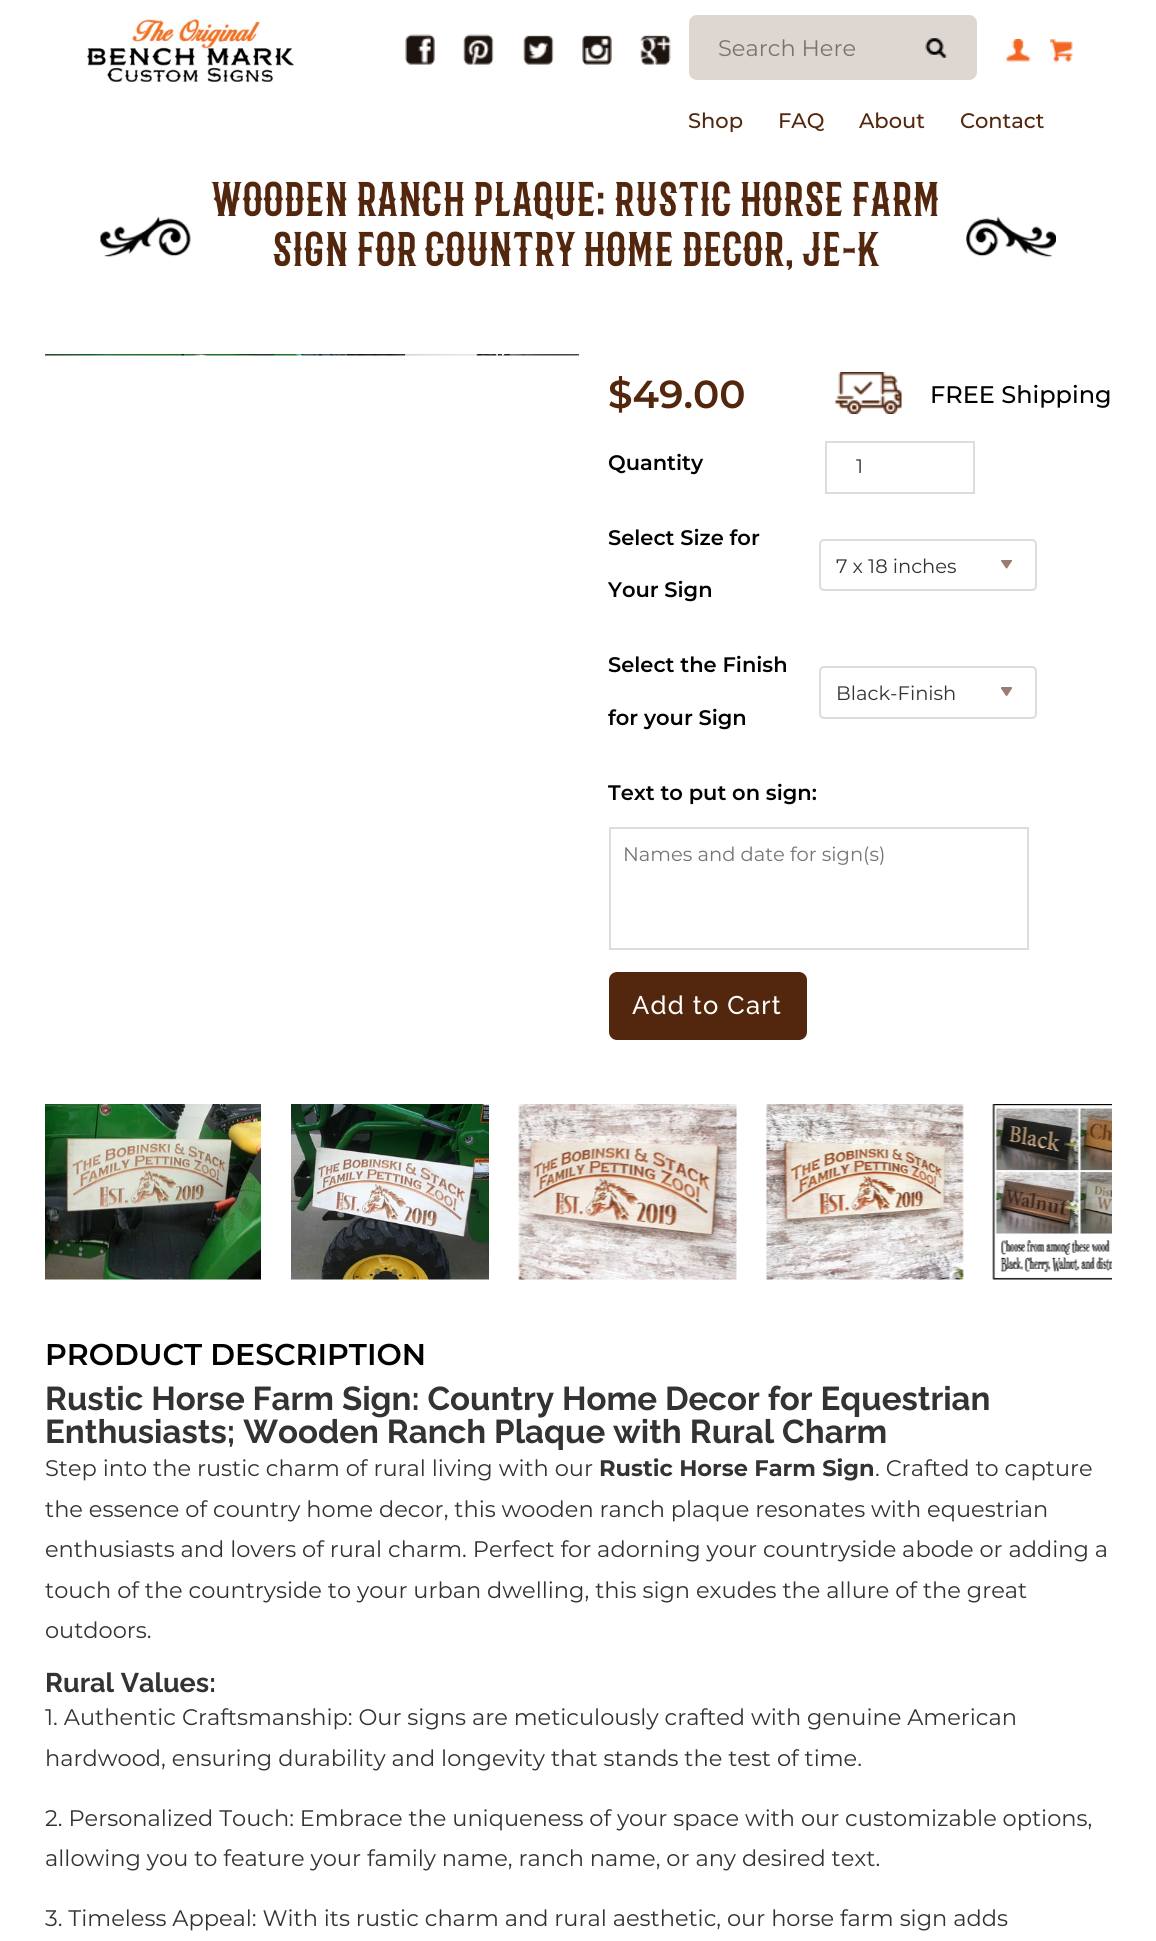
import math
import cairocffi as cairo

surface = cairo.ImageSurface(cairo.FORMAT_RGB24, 1156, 1941)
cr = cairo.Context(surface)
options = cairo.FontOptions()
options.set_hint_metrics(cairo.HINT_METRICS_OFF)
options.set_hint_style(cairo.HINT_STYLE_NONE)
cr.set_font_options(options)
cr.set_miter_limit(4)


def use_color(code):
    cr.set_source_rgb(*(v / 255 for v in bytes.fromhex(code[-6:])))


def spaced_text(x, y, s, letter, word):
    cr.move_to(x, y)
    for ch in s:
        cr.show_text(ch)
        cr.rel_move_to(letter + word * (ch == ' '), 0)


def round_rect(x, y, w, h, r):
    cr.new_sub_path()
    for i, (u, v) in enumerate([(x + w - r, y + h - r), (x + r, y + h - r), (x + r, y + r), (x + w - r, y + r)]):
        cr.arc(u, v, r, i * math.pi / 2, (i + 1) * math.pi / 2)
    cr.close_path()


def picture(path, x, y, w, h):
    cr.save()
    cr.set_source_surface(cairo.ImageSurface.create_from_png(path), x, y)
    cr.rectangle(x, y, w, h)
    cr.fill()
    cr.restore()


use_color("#ffffff")
cr.paint()
picture("img1.png", 87, 15, 207, 68)
picture("img2.png", 405, 34, 30, 31)
picture("img3.png", 463, 34, 31, 31)
picture("img4.png", 523, 35, 31, 30)
picture("img5.png", 582, 35, 30, 30)
picture("img6.png", 640, 35, 31, 30)
use_color("#ded6d1")
round_rect(689, 15, 288, 65, 8)
cr.fill()
cr.select_font_face("Montserrat")
cr.set_font_size(22.5)
use_color("#757575")
cr.move_to(718, 56)
cr.show_text("Search Here")
picture("img7.png", 925, 38, 22, 20)
picture("img8.png", 1006, 39, 25, 23)
picture("img9.png", 1050, 39, 23, 23)
cr.select_font_face("Montserrat Medium")
cr.set_font_size(21)
use_color("#53270e")
cr.move_to(688, 128)
cr.show_text("Shop")
cr.move_to(778, 128)
cr.show_text("FAQ")
cr.move_to(859, 128)
cr.show_text("About")
cr.move_to(960, 128)
cr.show_text("Contact")
cr.select_font_face("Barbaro")
cr.set_font_size(46.5)
spaced_text(214, 216, "WOODEN RANCH PLAQUE: RUSTIC HORSE FARM", 1.5, 0)
picture("img10.png", 100, 216, 91, 42)
spaced_text(274, 266, "SIGN FOR COUNTRY HOME DECOR, JE-K", 1.5, 0)
picture("img11.png", 966, 216, 90, 42)
picture("img12.png", 45, 354, 534, 2)
cr.select_font_face("Montserrat SemiBold")
cr.set_font_size(39)
cr.move_to(608, 408)
cr.show_text("$49.00")
picture("img13.png", 835, 372, 67, 42)
cr.select_font_face("Montserrat Medium")
cr.set_font_size(24)
use_color("#010101")
cr.move_to(930, 403)
cr.show_text("FREE Shipping")
cr.select_font_face("Montserrat SemiBold")
cr.set_font_size(21)
cr.move_to(608, 470)
cr.show_text("Quantity")
cr.rectangle(826, 442, 148, 51)
use_color("#dddddd")
cr.stroke()
cr.select_font_face("Montserrat")
cr.set_font_size(19.5)
use_color("#333333")
cr.move_to(856, 473)
cr.show_text("1")
cr.select_font_face("Montserrat SemiBold")
cr.set_font_size(21)
use_color("#010101")
cr.move_to(608, 545)
cr.show_text("Select Size for")
cr.move_to(608, 597)
cr.show_text("Your Sign")
picture("img14.png", 1001, 560, 12, 9)
round_rect(820, 540, 216, 50, 4)
use_color("#dddddd")
cr.stroke()
cr.select_font_face("Montserrat")
cr.set_font_size(19.5)
use_color("#333333")
cr.move_to(836, 573)
cr.show_text("7 x 18 inches")
cr.select_font_face("Montserrat SemiBold")
cr.set_font_size(21)
use_color("#010101")
cr.move_to(608, 672)
cr.show_text("Select the Finish")
cr.move_to(608, 725)
cr.show_text("for your Sign")
picture("img15.png", 1001, 687, 11, 9)
round_rect(820, 667, 216, 51, 4)
use_color("#dddddd")
cr.stroke()
cr.select_font_face("Montserrat")
cr.set_font_size(19.5)
use_color("#333333")
cr.move_to(836, 700)
cr.show_text("Black-Finish")
cr.select_font_face("Montserrat SemiBold")
cr.set_font_size(21)
use_color("#010101")
cr.move_to(608, 800)
cr.show_text("Text to put on sign:")
cr.rectangle(610, 828, 418, 121)
use_color("#dddddd")
cr.stroke()
cr.select_font_face("Montserrat")
cr.set_font_size(19.5)
use_color("#757575")
cr.move_to(623, 861)
cr.show_text("Names and date for sign(s)")
use_color("#53270e")
round_rect(610, 973, 196, 66, 7)
cr.fill_preserve()
cr.stroke()
cr.select_font_face("Raleway Medium")
cr.set_font_size(25.5)
use_color("#ffffff")
spaced_text(632, 1014, "Add to Cart", 1.25, 0)
picture("img16.png", 45, 1104, 216, 176)
picture("img17.png", 291, 1104, 198, 176)
picture("img18.png", 518, 1104, 219, 176)
picture("img19.png", 766, 1104, 198, 176)
picture("img20.png", 992, 1104, 120, 176)
cr.select_font_face("Montserrat SemiBold")
cr.set_font_size(30)
use_color("#010101")
cr.move_to(45, 1365)
cr.show_text("PRODUCT DESCRIPTION")
cr.select_font_face("Raleway", cairo.FONT_SLANT_NORMAL, cairo.FONT_WEIGHT_BOLD)
cr.set_font_size(33)
use_color("#333333")
cr.move_to(45, 1410)
cr.show_text("Rustic Horse Farm Sign: Country Home Decor for Equestrian")
cr.move_to(45, 1443)
cr.show_text("Enthusiasts; Wooden Ranch Plaque with Rural Charm")
cr.select_font_face("Montserrat")
cr.set_font_size(22.5)
cr.move_to(45, 1476)
cr.show_text("Step into the rustic charm of rural living with our")
cr.select_font_face("Montserrat", cairo.FONT_SLANT_NORMAL, cairo.FONT_WEIGHT_BOLD)
cr.move_to(599, 1476)
cr.show_text("Rustic Horse Farm Sign")
cr.select_font_face("Montserrat")
cr.move_to(875, 1476)
cr.show_text(". Crafted to capture")
cr.move_to(45, 1517)
cr.show_text("the essence of country home decor, this wooden ranch plaque resonates with equestrian")
cr.move_to(45, 1557)
cr.show_text("enthusiasts and lovers of rural charm. Perfect for adorning your countryside abode or adding a")
cr.move_to(45, 1598)
cr.show_text("touch of the countryside to your urban dwelling, this sign exudes the allure of the great")
cr.move_to(45, 1638)
cr.show_text("outdoors.")
cr.select_font_face("Raleway", cairo.FONT_SLANT_NORMAL, cairo.FONT_WEIGHT_BOLD)
cr.set_font_size(27)
cr.move_to(45, 1692)
cr.show_text("Rural Values:")
cr.select_font_face("Montserrat")
cr.set_font_size(22.5)
cr.move_to(45, 1725)
cr.show_text("1. Authentic Craftsmanship: Our signs are meticulously crafted with genuine American")
cr.move_to(45, 1766)
cr.show_text("hardwood, ensuring durability and longevity that stands the test of time.")
cr.move_to(45, 1826)
cr.show_text("2. Personalized Touch: Embrace the uniqueness of your space with our customizable options,")
cr.move_to(45, 1866)
cr.show_text("allowing you to feature your family name, ranch name, or any desired text.")
cr.move_to(45, 1926)
cr.show_text("3. Timeless Appeal: With its rustic charm and rural aesthetic, our horse farm sign adds")
surface.write_to_png("result.png")
